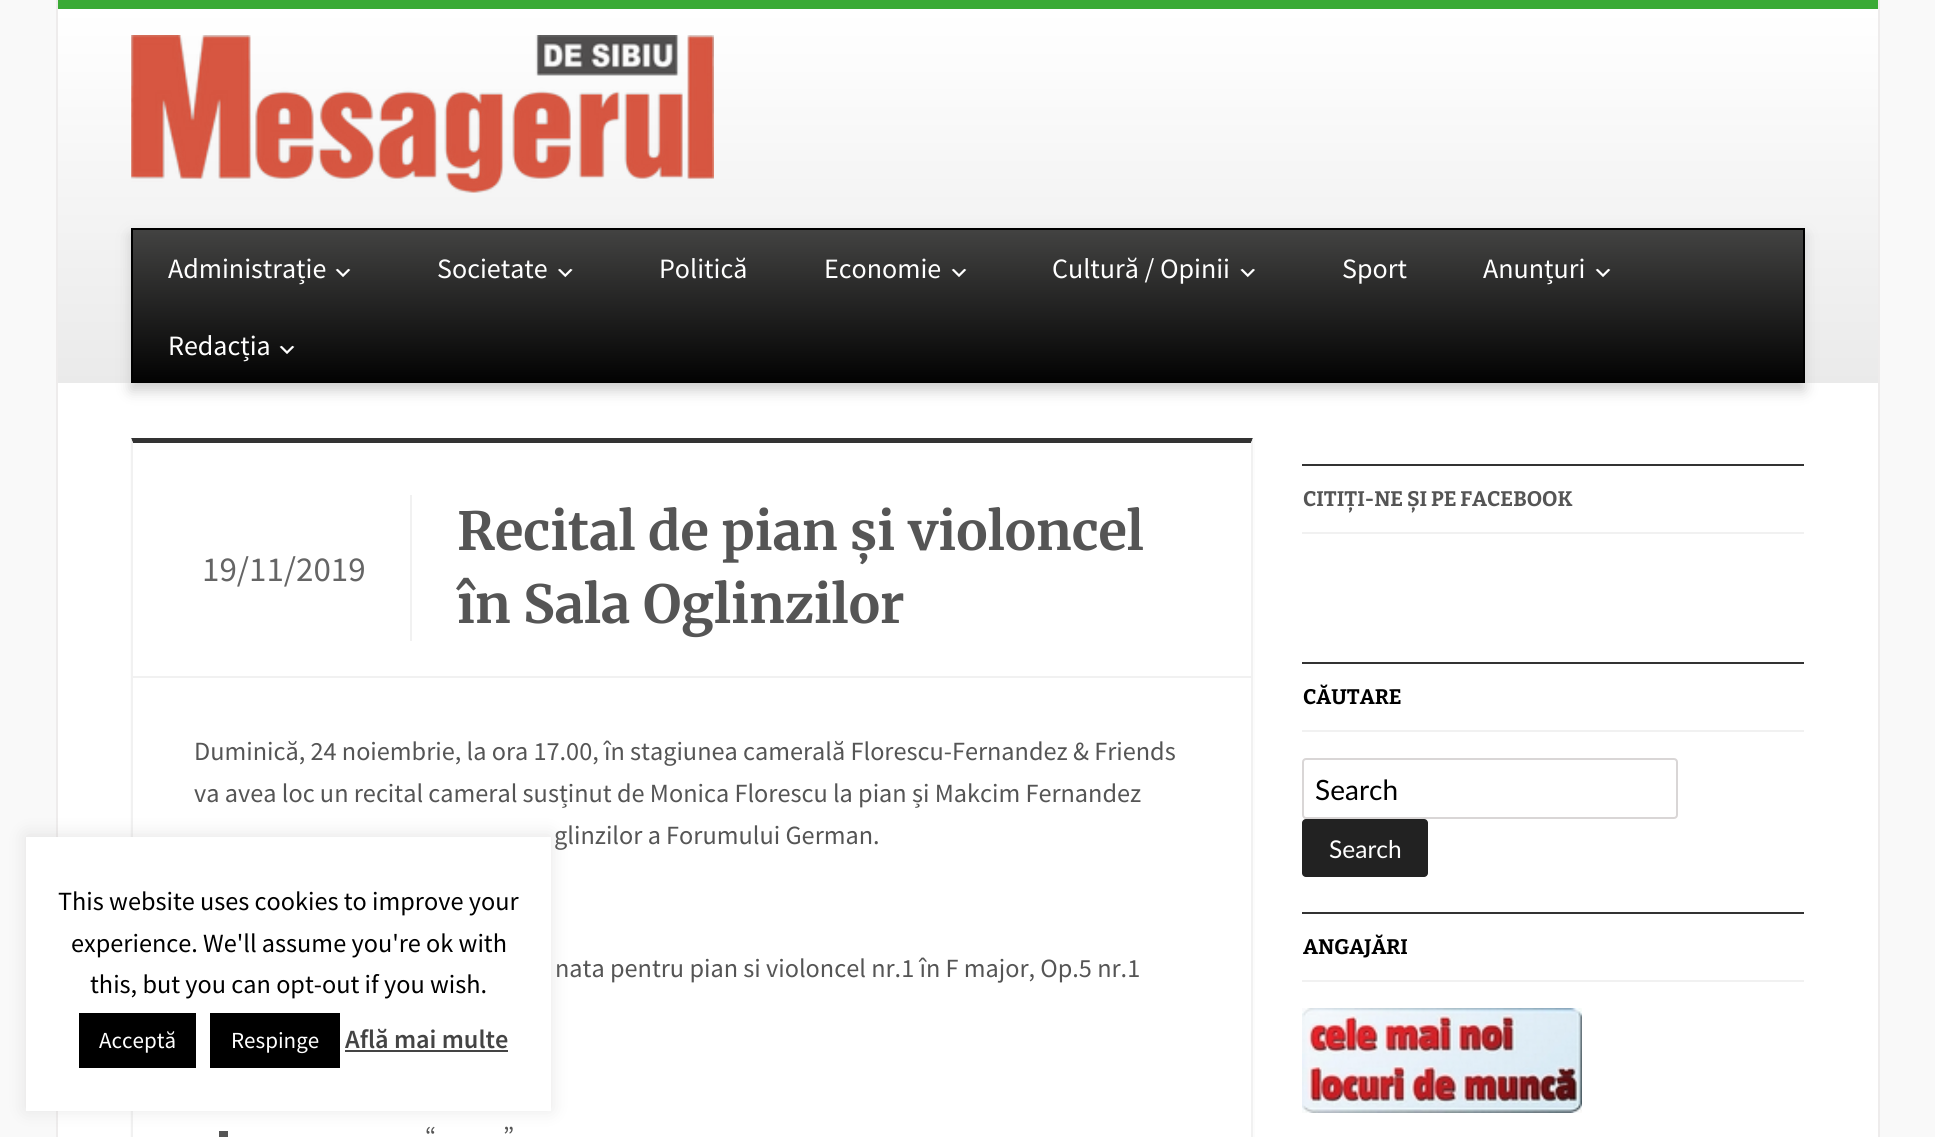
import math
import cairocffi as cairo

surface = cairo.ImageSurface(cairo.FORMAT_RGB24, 1935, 1137)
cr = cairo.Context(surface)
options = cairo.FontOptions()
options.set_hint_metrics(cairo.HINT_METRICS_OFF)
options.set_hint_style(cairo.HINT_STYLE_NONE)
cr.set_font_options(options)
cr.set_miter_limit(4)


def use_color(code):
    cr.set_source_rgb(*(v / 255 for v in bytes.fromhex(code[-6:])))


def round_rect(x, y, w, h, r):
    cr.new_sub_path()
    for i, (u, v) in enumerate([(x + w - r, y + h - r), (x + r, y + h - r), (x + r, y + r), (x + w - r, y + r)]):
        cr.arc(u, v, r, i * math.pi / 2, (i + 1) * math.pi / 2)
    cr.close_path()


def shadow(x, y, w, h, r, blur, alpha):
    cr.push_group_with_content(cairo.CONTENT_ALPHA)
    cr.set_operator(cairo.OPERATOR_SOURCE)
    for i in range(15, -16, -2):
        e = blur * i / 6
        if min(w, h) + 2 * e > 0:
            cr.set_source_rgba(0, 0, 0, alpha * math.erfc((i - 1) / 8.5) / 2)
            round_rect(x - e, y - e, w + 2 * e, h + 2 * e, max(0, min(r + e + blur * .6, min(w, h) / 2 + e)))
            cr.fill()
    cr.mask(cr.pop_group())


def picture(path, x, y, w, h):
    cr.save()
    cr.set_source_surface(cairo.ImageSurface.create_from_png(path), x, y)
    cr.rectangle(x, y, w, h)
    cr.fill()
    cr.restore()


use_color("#f9f9f9")
cr.paint()
use_color("#ffffff")
cr.rectangle(58, 383, 1820, 754)
cr.fill()
use_color("#eeecec")
cr.rectangle(1878, 0, 2, 1137)
cr.fill()
cr.rectangle(56, 0, 2, 1137)
cr.fill()
gradient = cairo.LinearGradient(968, 9, 968, 383)
gradient.add_color_stop_rgba(0, 1, 1, 1, 1)
gradient.add_color_stop_rgba(1, 0.918, 0.918, 0.918, 1)
cr.set_source(gradient)
cr.rectangle(58, 9, 1820, 374)
cr.fill()
use_color("#3aaa35")
cr.rectangle(58, 0, 1820, 9)
cr.fill()
picture("img1.png", 131, 35, 583, 158)
use_color("#cccccc")
shadow(131, 235, 1673, 155, 0, 7, 1)
gradient = cairo.LinearGradient(968, 229, 968, 383)
gradient.add_color_stop_rgba(0, 0.263, 0.263, 0.259, 1)
gradient.add_color_stop_rgba(1, 0.008, 0.008, 0.008, 1)
cr.set_source(gradient)
cr.rectangle(133, 230, 1670, 153)
cr.fill()
use_color("#000000")
cr.rectangle(131, 228, 1673, 2)
cr.fill()
cr.rectangle(1803, 228, 2, 155)
cr.fill()
cr.rectangle(131, 228, 2, 155)
cr.fill()
cr.select_font_face("Source Sans Pro")
cr.set_font_size(28)
use_color("#ffffff")
cr.move_to(168, 278)
cr.show_text("Administrație")
picture("img2.png", 335, 268, 16, 9)
cr.move_to(437, 278)
cr.show_text("Societate")
picture("img3.png", 558, 268, 15, 10)
cr.move_to(659, 278)
cr.show_text("Politică")
cr.move_to(824, 278)
cr.show_text("Economie")
picture("img2.png", 951, 268, 16, 9)
cr.move_to(1052, 278)
cr.show_text("Cultură / Opinii")
picture("img4.png", 1240, 268, 15, 10)
cr.move_to(1342, 278)
cr.show_text("Sport")
cr.move_to(1483, 278)
cr.show_text("Anunțuri")
picture("img2.png", 1595, 268, 16, 9)
cr.move_to(168, 355)
cr.show_text("Redacția")
picture("img5.png", 279, 345, 16, 9)
use_color("#fcfcfc")
cr.new_path()
cr.move_to(130, 438)
cr.line_to(130, 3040)
cr.line_to(1255, 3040)
cr.line_to(1255, 438)
cr.line_to(1253, 438)
cr.line_to(1253, 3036)
cr.line_to(131, 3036)
cr.line_to(131, 438)
cr.close_path()
cr.fill()
use_color("#333333")
cr.new_path()
cr.move_to(131, 438)
cr.line_to(1253, 438)
cr.line_to(1251, 443)
cr.line_to(133, 443)
cr.close_path()
cr.fill()
use_color("#f1f1f1")
cr.new_path()
cr.move_to(1253, 438)
cr.line_to(1253, 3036)
cr.line_to(1251, 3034)
cr.line_to(1251, 443)
cr.close_path()
cr.fill()
cr.new_path()
cr.move_to(131, 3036)
cr.line_to(131, 438)
cr.line_to(133, 443)
cr.line_to(133, 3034)
cr.close_path()
cr.fill()
cr.rectangle(410, 495, 2, 146)
cr.fill()
cr.set_font_size(35)
use_color("#656565")
cr.move_to(202, 581)
cr.show_text("19/11/2019")
cr.select_font_face("Merriweather", cairo.FONT_SLANT_NORMAL, cairo.FONT_WEIGHT_BOLD)
cr.set_font_size(52.5)
use_color("#555555")
cr.move_to(457, 550)
cr.show_text("Recital de pian și violoncel")
cr.move_to(457, 623)
cr.show_text("în Sala Oglinzilor")
use_color("#f1f1f1")
cr.rectangle(133, 676, 1118, 2)
cr.fill()
cr.select_font_face("Source Sans Pro")
cr.set_font_size(26.25)
use_color("#555555")
cr.move_to(194, 760)
cr.show_text("Duminică, 24 noiembrie, la ora 17.00, în stagiunea camerală Florescu-Fernandez & Friends")
cr.move_to(194, 802)
cr.show_text("va avea loc un recital cameral susținut de Monica Florescu la pian și Makcim Fernandez")
cr.move_to(554, 844)
cr.show_text("glinzilor a Forumului German.")
cr.move_to(555, 977)
cr.show_text("nata pentru pian si violoncel nr.1 în F major, Op.5 nr.1")
cr.rectangle(219, 1131, 9, 6)
cr.fill()
cr.move_to(425, 1145)
cr.show_text("“")
cr.move_to(503, 1145)
cr.show_text("”")
use_color("#333333")
cr.rectangle(1302, 464, 502, 2)
cr.fill()
use_color("#f1f1f1")
cr.rectangle(1302, 532, 502, 2)
cr.fill()
cr.select_font_face("Bitter", cairo.FONT_SLANT_NORMAL, cairo.FONT_WEIGHT_BOLD)
cr.set_font_size(21)
use_color("#555555")
cr.move_to(1303, 506)
cr.show_text("CITIȚI-NE ȘI PE FACEBOOK")
use_color("#333333")
cr.rectangle(1302, 662, 502, 2)
cr.fill()
use_color("#f1f1f1")
cr.rectangle(1302, 730, 502, 2)
cr.fill()
use_color("#000000")
cr.move_to(1303, 704)
cr.show_text("CĂUTARE")
round_rect(1303, 759, 374, 59, 3)
use_color("#d9d6d6")
cr.stroke()
cr.select_font_face("Lato")
cr.set_font_size(28)
use_color("#000000")
cr.move_to(1315, 800)
cr.show_text("Search")
use_color("#222222")
round_rect(1302, 819, 126, 58, 4)
cr.fill()
cr.set_font_size(24.5)
use_color("#ffffff")
cr.move_to(1329, 858)
cr.show_text("Search")
use_color("#333333")
cr.rectangle(1302, 912, 502, 2)
cr.fill()
use_color("#f1f1f1")
cr.rectangle(1302, 980, 502, 2)
cr.fill()
cr.select_font_face("Bitter", cairo.FONT_SLANT_NORMAL, cairo.FONT_WEIGHT_BOLD)
cr.set_font_size(21)
use_color("#000000")
cr.move_to(1303, 954)
cr.show_text("ANGAJĂRI")
picture("img6.png", 1302, 1008, 280, 105)
use_color("#acabab")
shadow(26, 835, 525, 275, 0, 9, 0.3)
use_color("#ffffff")
cr.rectangle(26, 837, 525, 274)
cr.fill()
cr.select_font_face("Source Sans Pro")
cr.set_font_size(26.25)
use_color("#000000")
cr.move_to(58, 910)
cr.show_text("This website uses cookies to improve your")
cr.move_to(71, 952)
cr.show_text("experience. We'll assume you're ok with")
cr.move_to(90, 993)
cr.show_text("this, but you can opt-out if you wish.")
cr.rectangle(79, 1013, 117, 55)
cr.fill()
cr.set_font_size(23)
use_color("#ffffff")
cr.move_to(99, 1048)
cr.show_text("Acceptă")
use_color("#000000")
cr.rectangle(210, 1013, 130, 55)
cr.fill()
use_color("#ffffff")
cr.move_to(231, 1048)
cr.show_text("Respinge")
cr.select_font_face("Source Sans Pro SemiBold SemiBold")
cr.set_font_size(26.25)
use_color("#444444")
cr.move_to(345, 1048)
cr.show_text("Află mai multe")
cr.rectangle(345, 1050, 163, 2)
cr.fill()
surface.write_to_png("result.png")
